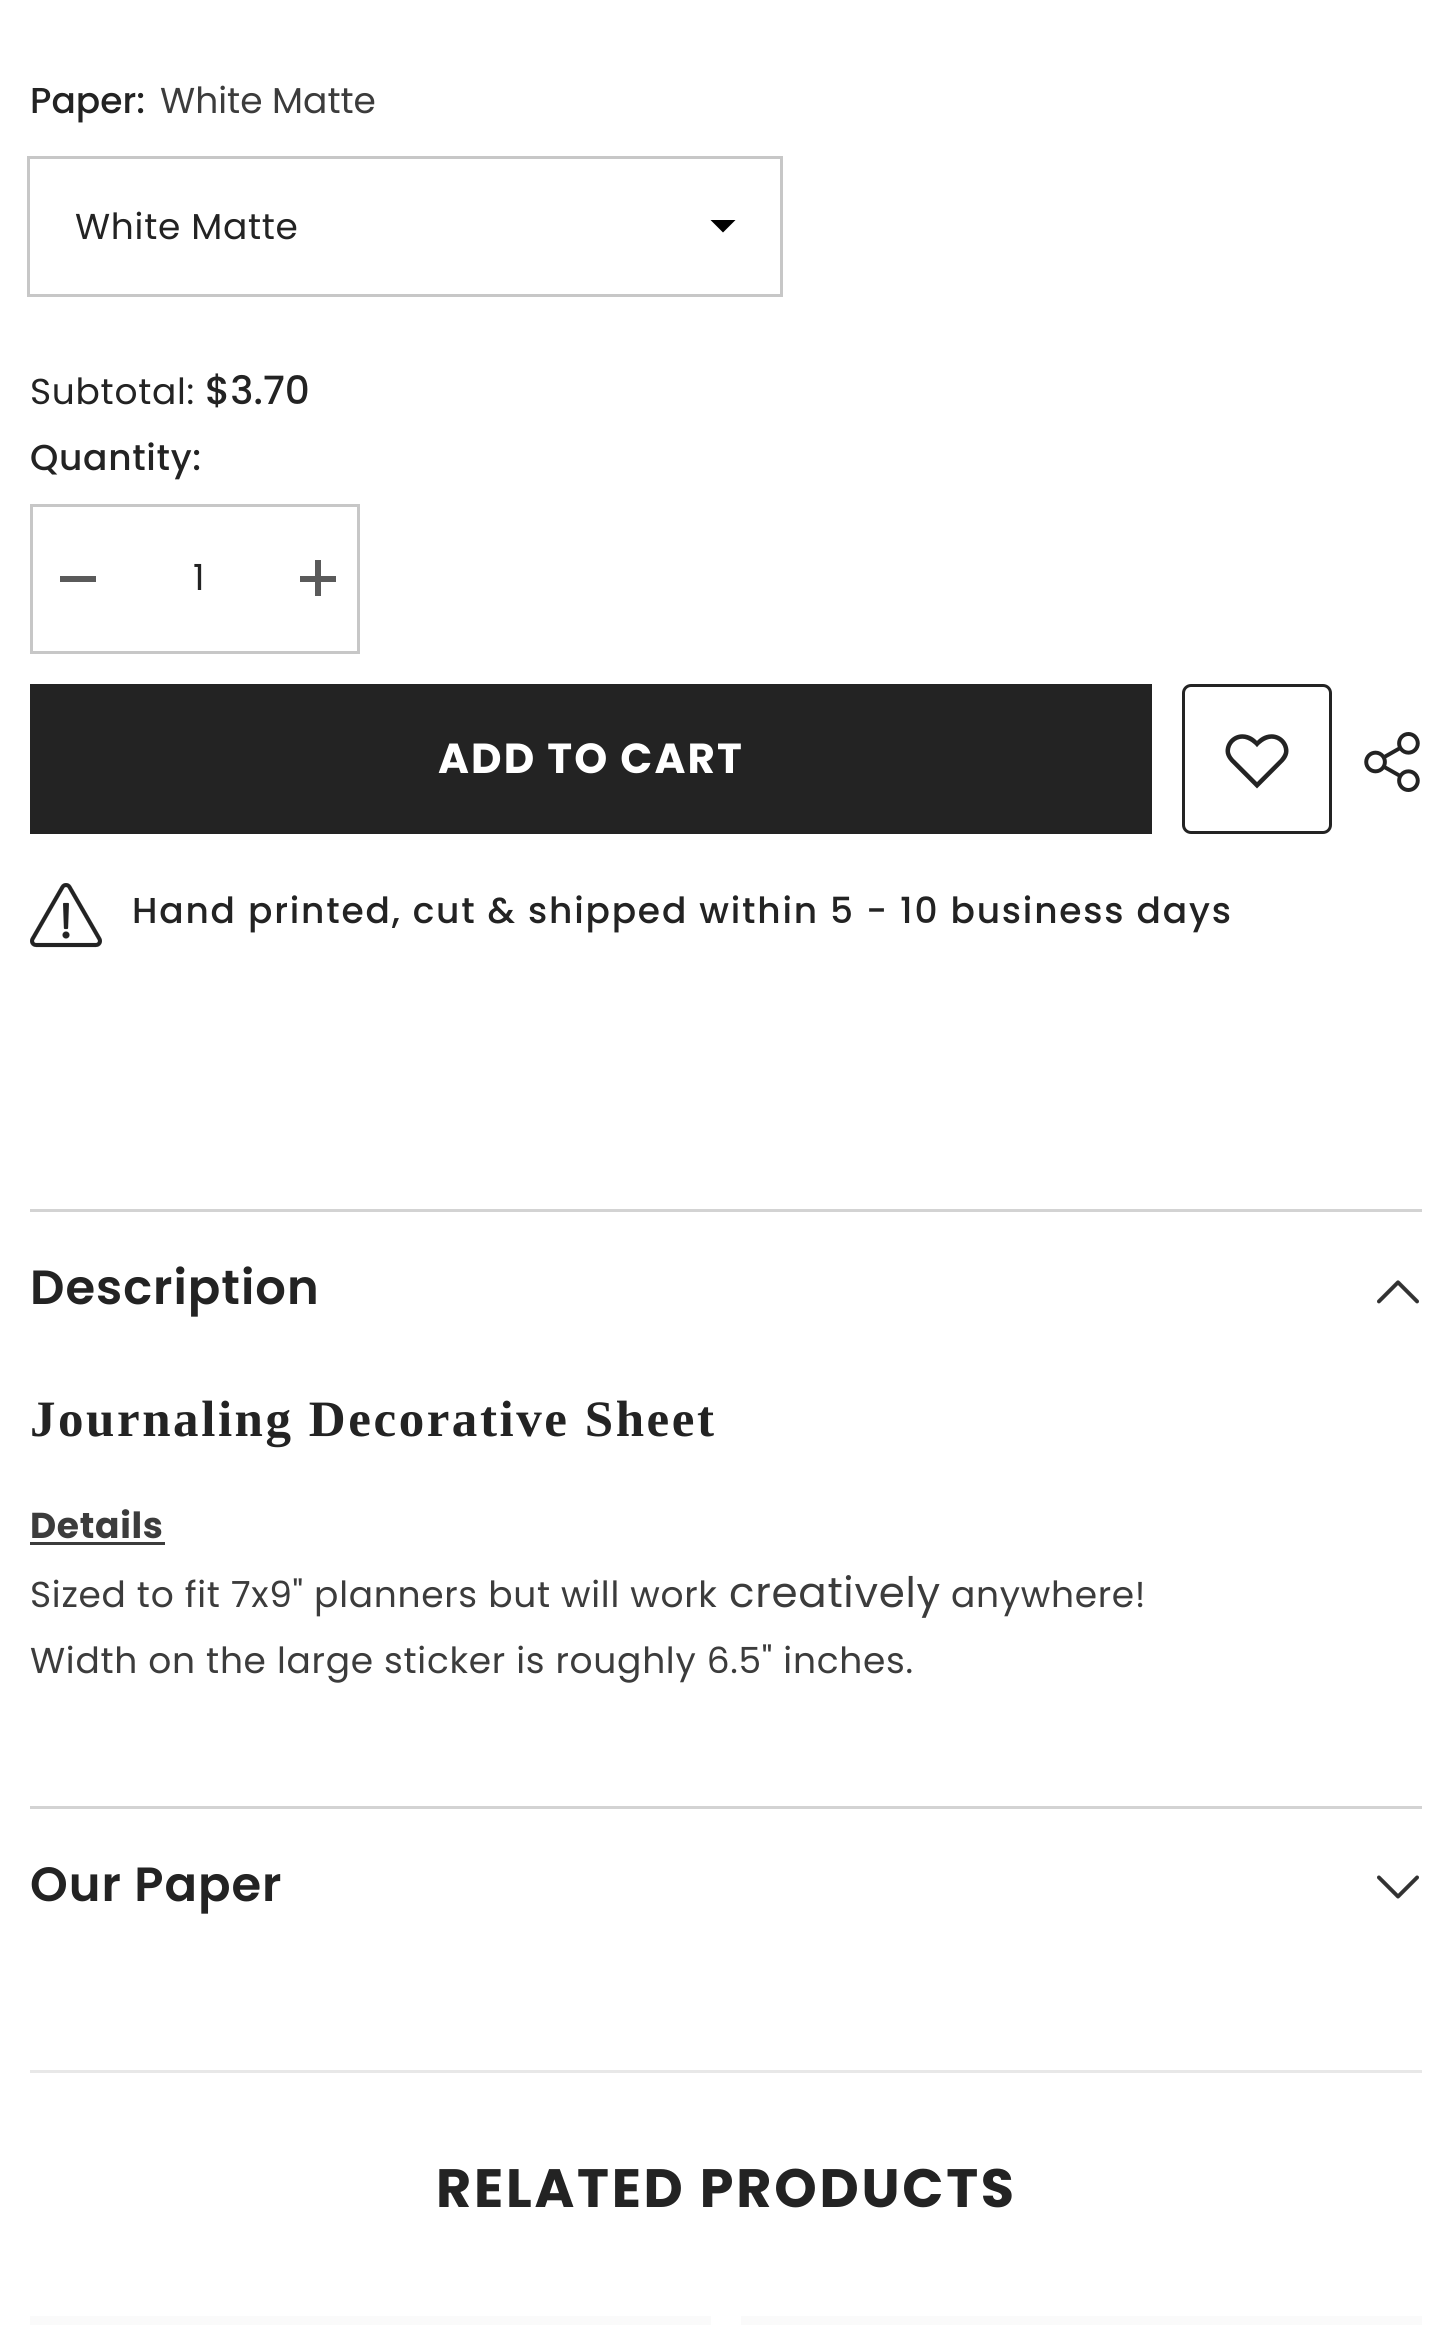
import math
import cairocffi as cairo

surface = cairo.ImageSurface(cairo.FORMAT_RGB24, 1450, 2325)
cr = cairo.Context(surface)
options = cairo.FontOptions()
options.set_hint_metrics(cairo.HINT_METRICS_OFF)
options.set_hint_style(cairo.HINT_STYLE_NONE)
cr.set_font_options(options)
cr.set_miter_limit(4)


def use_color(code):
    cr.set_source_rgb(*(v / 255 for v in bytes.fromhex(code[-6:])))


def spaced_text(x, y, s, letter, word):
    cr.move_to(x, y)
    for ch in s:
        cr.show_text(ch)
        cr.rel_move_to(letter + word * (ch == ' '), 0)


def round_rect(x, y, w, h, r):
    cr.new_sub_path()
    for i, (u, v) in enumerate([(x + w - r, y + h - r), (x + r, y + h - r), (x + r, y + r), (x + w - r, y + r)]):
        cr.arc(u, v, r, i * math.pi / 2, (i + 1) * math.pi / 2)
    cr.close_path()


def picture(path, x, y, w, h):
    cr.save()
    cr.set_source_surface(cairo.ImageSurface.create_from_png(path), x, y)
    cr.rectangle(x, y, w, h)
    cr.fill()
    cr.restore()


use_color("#ffffff")
cr.paint()
cr.select_font_face("Poppins Medium")
cr.set_font_size(36)
use_color("#232323")
cr.move_to(30, 113)
cr.show_text("Paper:")
cr.select_font_face("Poppins")
use_color("#3c3c3c")
cr.move_to(160, 113)
cr.show_text("White Matte")
cr.rectangle(28.5, 157.5, 753, 138)
use_color("#c7c7c7")
cr.set_line_width(3)
cr.stroke()
use_color("#000000")
cr.new_path()
cr.move_to(710.5, 220)
cr.line_to(723, 232.5)
cr.line_to(735.5, 220)
cr.close_path()
cr.fill()
use_color("#232323")
spaced_text(75, 239, "White Matte", 0.7, 0)
spaced_text(30, 404, "Subtotal:", 0.7, 0)
cr.select_font_face("Poppins Medium")
cr.set_font_size(39)
cr.move_to(205, 404)
cr.show_text("$3.70")
cr.set_font_size(36)
spaced_text(30, 470, "Quantity:", 0.7, 0)
cr.rectangle(31.5, 505.5, 327, 147)
use_color("#c7c7c7")
cr.stroke()
use_color("#5a5a5a")
cr.rectangle(60, 576, 36, 6)
cr.fill()
cr.select_font_face("Poppins")
use_color("#232323")
spaced_text(193, 590, "1", 0.7, 0)
use_color("#5a5a5a")
cr.rectangle(300, 576, 36, 6)
cr.fill()
cr.rectangle(315, 560, 6, 36)
cr.fill()
use_color("#232323")
cr.rectangle(30, 684, 1122, 150)
cr.fill()
cr.select_font_face("Poppins", cairo.FONT_SLANT_NORMAL, cairo.FONT_WEIGHT_BOLD)
cr.set_font_size(42)
use_color("#ffffff")
spaced_text(438, 773, "ADD TO CART", 2.1, 0)
round_rect(1183.5, 685.5, 147, 147, 7.5)
use_color("#232323")
cr.stroke()
picture("img1.png", 1225, 734, 64, 55)
picture("img2.png", 1364, 732, 56, 60)
picture("img3.png", 30, 883, 72, 65)
cr.select_font_face("Poppins Medium")
cr.set_font_size(36)
spaced_text(132, 923, "Hand printed, cut & shipped within 5 - 10 business days", 1.8, 0)
use_color("#d3d3d3")
cr.rectangle(30, 1209, 1392, 3)
cr.fill()
cr.select_font_face("Poppins SemiBold")
cr.set_font_size(48)
use_color("#232323")
spaced_text(30, 1304, "Description", 1, 0)
picture("img4.png", 1377, 1280, 42, 24)
cr.select_font_face("Liberation Serif", cairo.FONT_SLANT_NORMAL, cairo.FONT_WEIGHT_BOLD)
cr.set_font_size(51)
spaced_text(30, 1436, "Journaling Decorative Sheet", 2.55, 0)
cr.select_font_face("Poppins", cairo.FONT_SLANT_NORMAL, cairo.FONT_WEIGHT_BOLD)
cr.set_font_size(36)
use_color("#3c3c3c")
spaced_text(30, 1538, "Details", 0.7, 0)
cr.rectangle(30, 1542, 135, 3)
cr.fill()
cr.select_font_face("Poppins")
spaced_text(30, 1607, "Sized to fit 7x9\" planners but will work", 0.7, 0)
cr.set_font_size(42)
spaced_text(729, 1607, "creatively", 0.7, 0)
cr.set_font_size(36)
spaced_text(951, 1607, "anywhere!", 0.7, 0)
spaced_text(30, 1673, "Width on the large sticker is roughly 6.5\" inches.", 0.7, 0)
use_color("#d3d3d3")
cr.rectangle(30, 1806, 1392, 3)
cr.fill()
cr.select_font_face("Poppins SemiBold")
cr.set_font_size(48)
use_color("#232323")
spaced_text(30, 1901, "Our Paper", 1, 0)
picture("img5.png", 1377, 1875, 42, 24)
use_color("#e8e8e8")
cr.rectangle(30, 2070, 1392, 3)
cr.fill()
cr.select_font_face("Poppins", cairo.FONT_SLANT_NORMAL, cairo.FONT_WEIGHT_BOLD)
cr.set_font_size(54)
use_color("#232323")
spaced_text(436, 2207, "RELATED PRODUCTS", 2.75, 0)
use_color("#fafafa")
cr.rectangle(30, 2316, 681, 9)
cr.fill()
cr.rectangle(741, 2316, 681, 9)
cr.fill()
surface.write_to_png("result.png")
